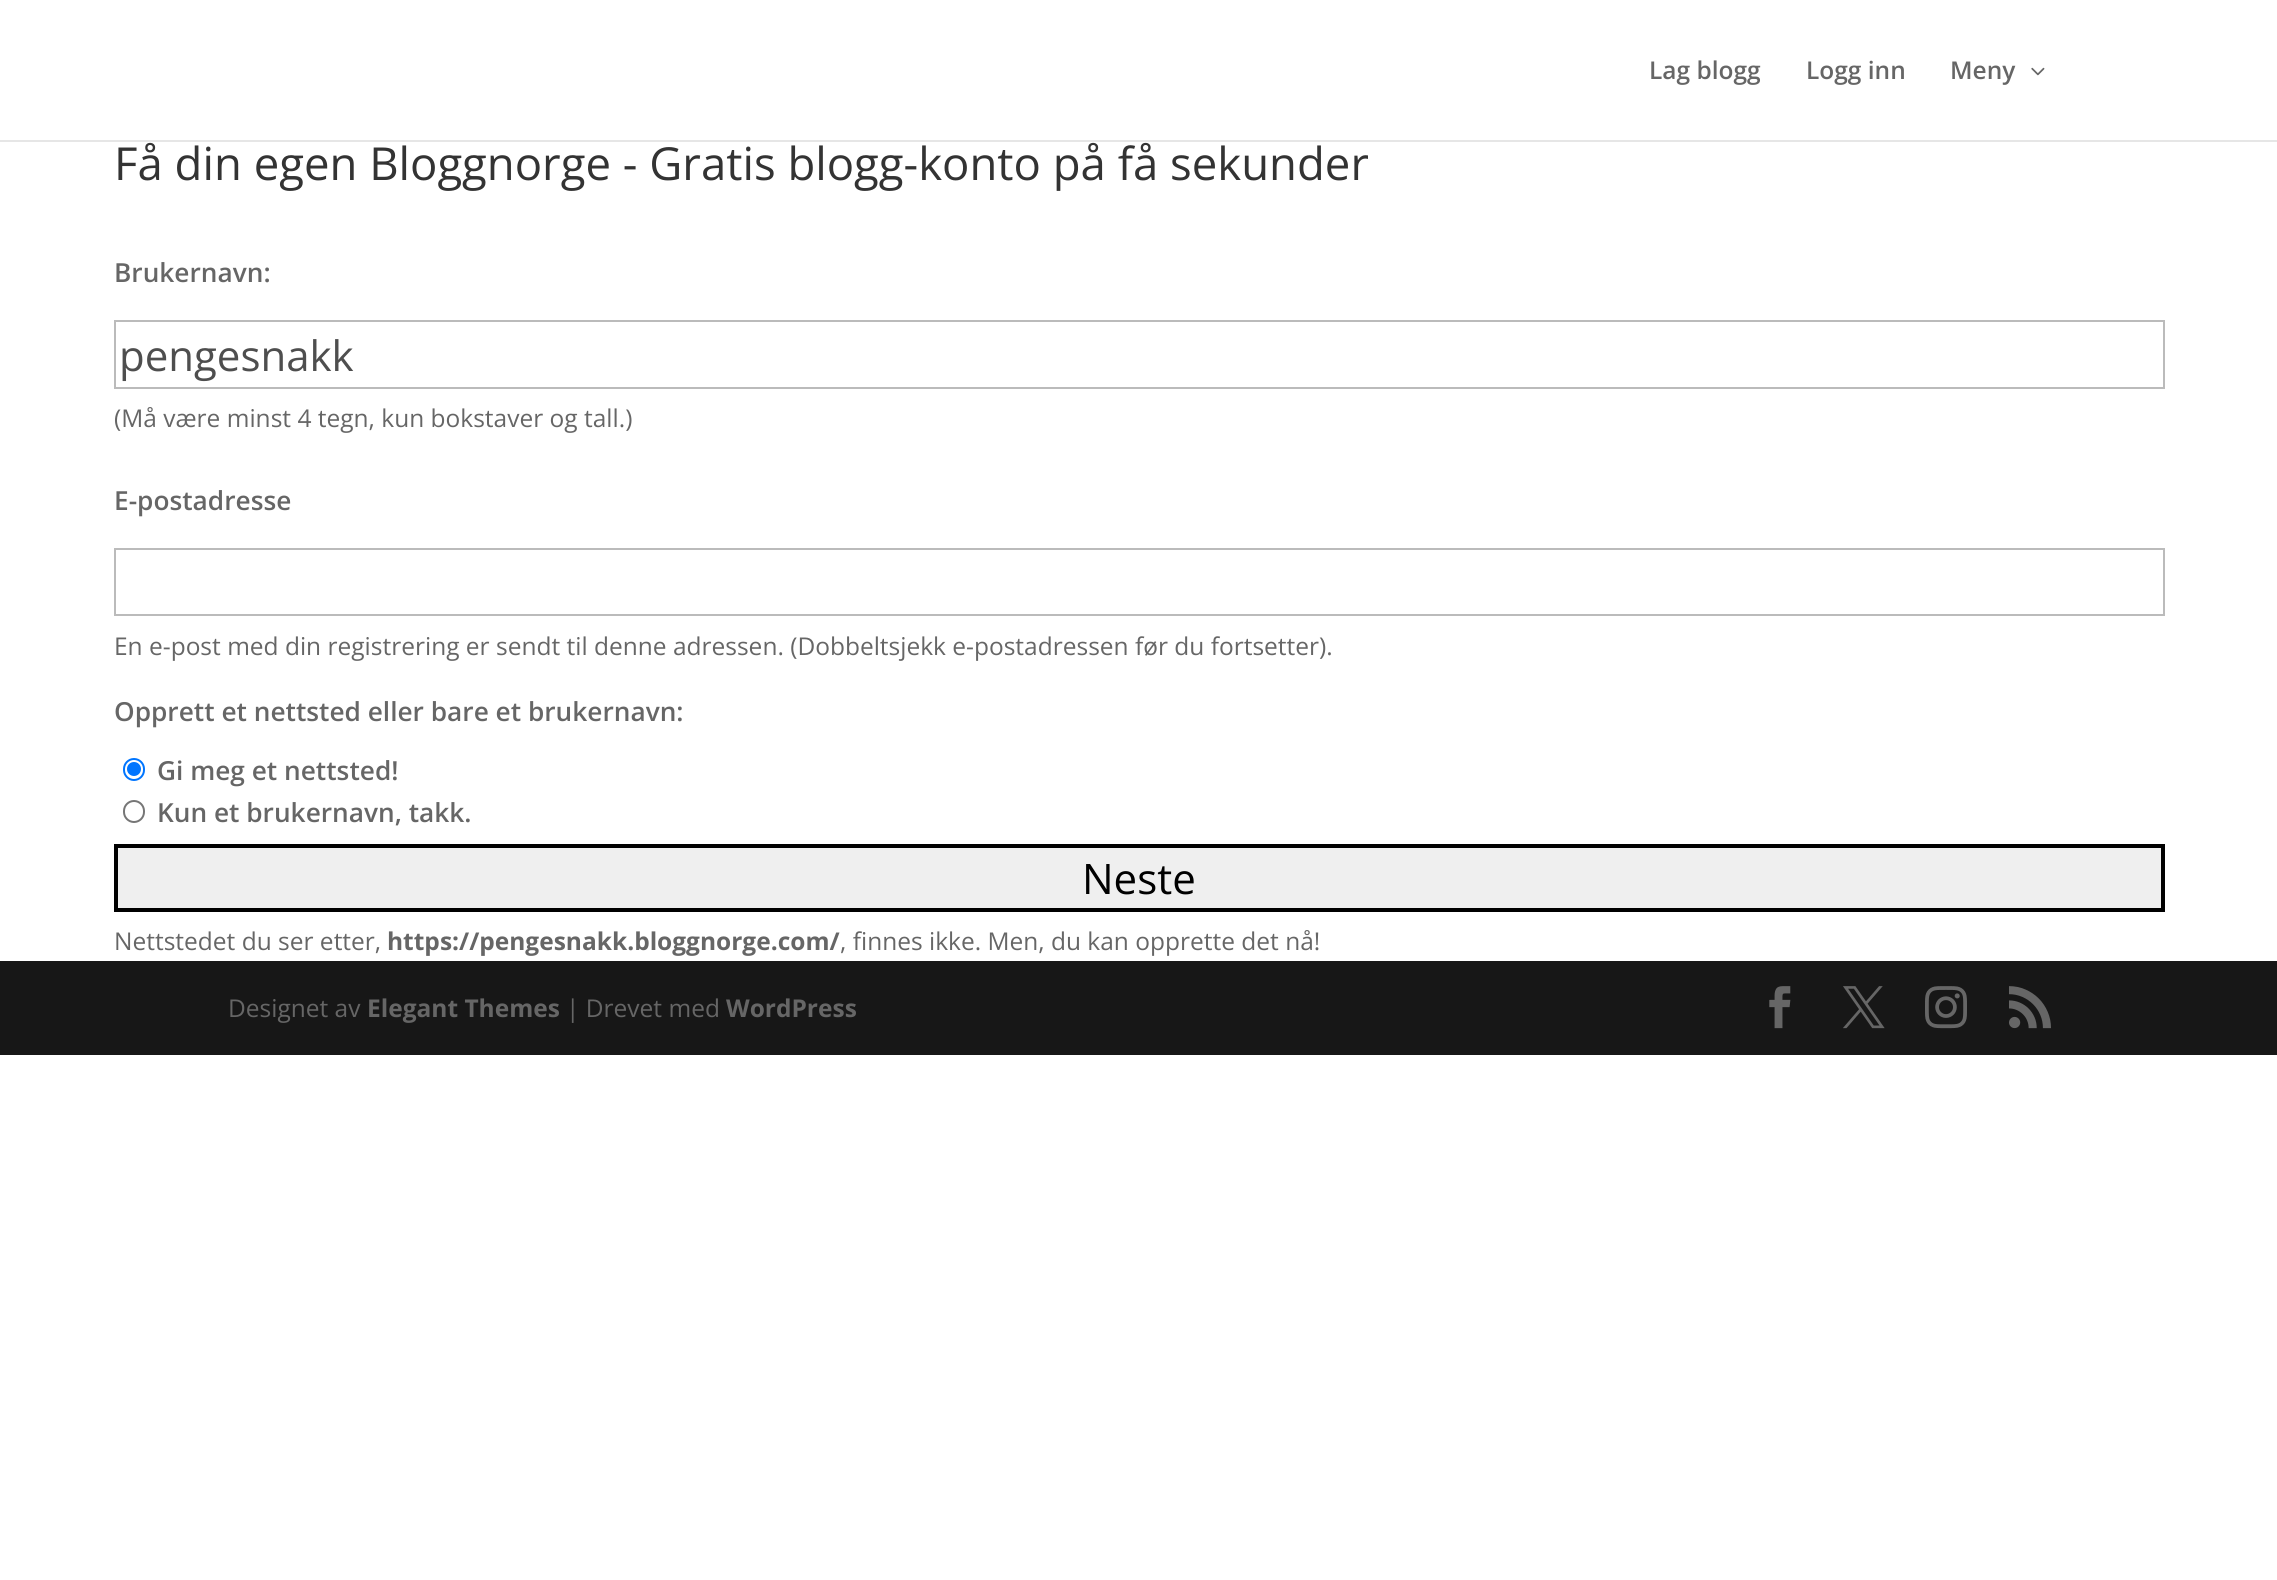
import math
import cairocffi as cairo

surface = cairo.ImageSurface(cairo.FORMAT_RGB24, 2277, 1580)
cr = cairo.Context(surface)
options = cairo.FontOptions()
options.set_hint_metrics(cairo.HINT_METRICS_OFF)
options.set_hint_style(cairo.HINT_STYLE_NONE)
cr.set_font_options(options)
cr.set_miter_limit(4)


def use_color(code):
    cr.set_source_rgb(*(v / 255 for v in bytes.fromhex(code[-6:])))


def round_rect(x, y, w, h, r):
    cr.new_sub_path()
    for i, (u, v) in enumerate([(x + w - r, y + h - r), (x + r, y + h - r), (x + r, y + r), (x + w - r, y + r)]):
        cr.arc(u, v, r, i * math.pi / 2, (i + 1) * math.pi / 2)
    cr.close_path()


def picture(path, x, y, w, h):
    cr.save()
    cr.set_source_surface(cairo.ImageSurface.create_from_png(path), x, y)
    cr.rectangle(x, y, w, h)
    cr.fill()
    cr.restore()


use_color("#ffffff")
cr.paint()
use_color("#e6e6e6")
cr.new_path()
cr.move_to(0, 140)
cr.line_to(0, 142)
cr.line_to(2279, 142)
cr.line_to(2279, 2)
cr.line_to(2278, 2)
cr.line_to(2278, 140)
cr.close_path()
cr.fill()
cr.select_font_face("Open Sans SemiBold")
cr.set_font_size(24.5)
use_color("#666666")
cr.move_to(1649, 79)
cr.show_text("Lag blogg")
cr.move_to(1806, 79)
cr.show_text("Logg inn")
cr.move_to(1950, 79)
cr.show_text("Meny")
picture("img1.png", 2031, 67, 14, 9)
cr.select_font_face("Open Sans")
cr.set_font_size(45.5)
use_color("#333333")
cr.move_to(114, 180)
cr.show_text("Få din egen Bloggnorge - Gratis blogg-konto på få sekunder")
cr.select_font_face("Open Sans SemiBold")
cr.set_font_size(26.25)
use_color("#666666")
cr.move_to(114, 282)
cr.show_text("Brukernavn:")
cr.rectangle(115, 321, 2049, 67)
use_color("#bbbbbb")
cr.stroke()
cr.select_font_face("Open Sans")
cr.set_font_size(42)
use_color("#4e4e4e")
cr.move_to(119, 371)
cr.show_text("pengesnakk")
cr.set_font_size(24.5)
use_color("#666666")
cr.move_to(114, 427)
cr.show_text("(Må være minst 4 tegn, kun bokstaver og tall.)")
cr.select_font_face("Open Sans SemiBold")
cr.set_font_size(26.25)
cr.move_to(114, 510)
cr.show_text("E-postadresse")
cr.rectangle(115, 549, 2049, 66)
use_color("#bbbbbb")
cr.stroke()
cr.select_font_face("Open Sans")
cr.set_font_size(24.5)
use_color("#666666")
cr.move_to(114, 655)
cr.show_text("En e-post med din registrering er sendt til denne adressen. (Dobbeltsjekk e-postadressen før du fortsetter).")
cr.select_font_face("Open Sans SemiBold")
cr.set_font_size(26.25)
cr.move_to(114, 721)
cr.show_text("Opprett et nettsted eller bare et brukernavn:")
round_rect(124, 759, 20, 21, 10)
use_color("#0075ff")
cr.stroke()
cr.arc(134, 769, 7, 0, 2 * math.pi)
cr.fill()
use_color("#666666")
cr.move_to(157, 780)
cr.show_text("Gi meg et nettsted!")
round_rect(124, 801, 20, 21, 10)
use_color("#767676")
cr.stroke()
use_color("#666666")
cr.move_to(157, 822)
cr.show_text("Kun et brukernavn, takk.")
use_color("#efefef")
cr.rectangle(116, 846, 2047, 64)
cr.fill_preserve()
use_color("#000000")
cr.set_line_width(4)
cr.stroke()
cr.select_font_face("Open Sans")
cr.set_font_size(42)
cr.move_to(1082, 894)
cr.show_text("Neste")
cr.set_font_size(24.5)
use_color("#666666")
cr.move_to(114, 950)
cr.show_text("Nettstedet du ser etter,")
cr.select_font_face("Open Sans", cairo.FONT_SLANT_NORMAL, cairo.FONT_WEIGHT_BOLD)
cr.move_to(387, 950)
cr.show_text("https://pengesnakk.bloggnorge.com/")
cr.select_font_face("Open Sans")
cr.move_to(840, 950)
cr.show_text(", finnes ikke. Men, du kan opprette det nå!")
use_color("#171717")
cr.rectangle(0, 961, 2277, 94)
cr.fill()
use_color("#666666")
cr.move_to(228, 1017)
cr.show_text("Designet av")
cr.select_font_face("Open Sans", cairo.FONT_SLANT_NORMAL, cairo.FONT_WEIGHT_BOLD)
cr.move_to(367, 1017)
cr.show_text("Elegant Themes")
cr.select_font_face("Open Sans")
cr.move_to(566, 1017)
cr.show_text("| Drevet med")
cr.select_font_face("Open Sans", cairo.FONT_SLANT_NORMAL, cairo.FONT_WEIGHT_BOLD)
cr.move_to(726, 1017)
cr.show_text("WordPress")
picture("img2.png", 1769, 986, 22, 43)
picture("img3.png", 1843, 986, 42, 43)
picture("img4.png", 1925, 986, 42, 43)
picture("img5.png", 2009, 986, 42, 43)
surface.write_to_png("result.png")
